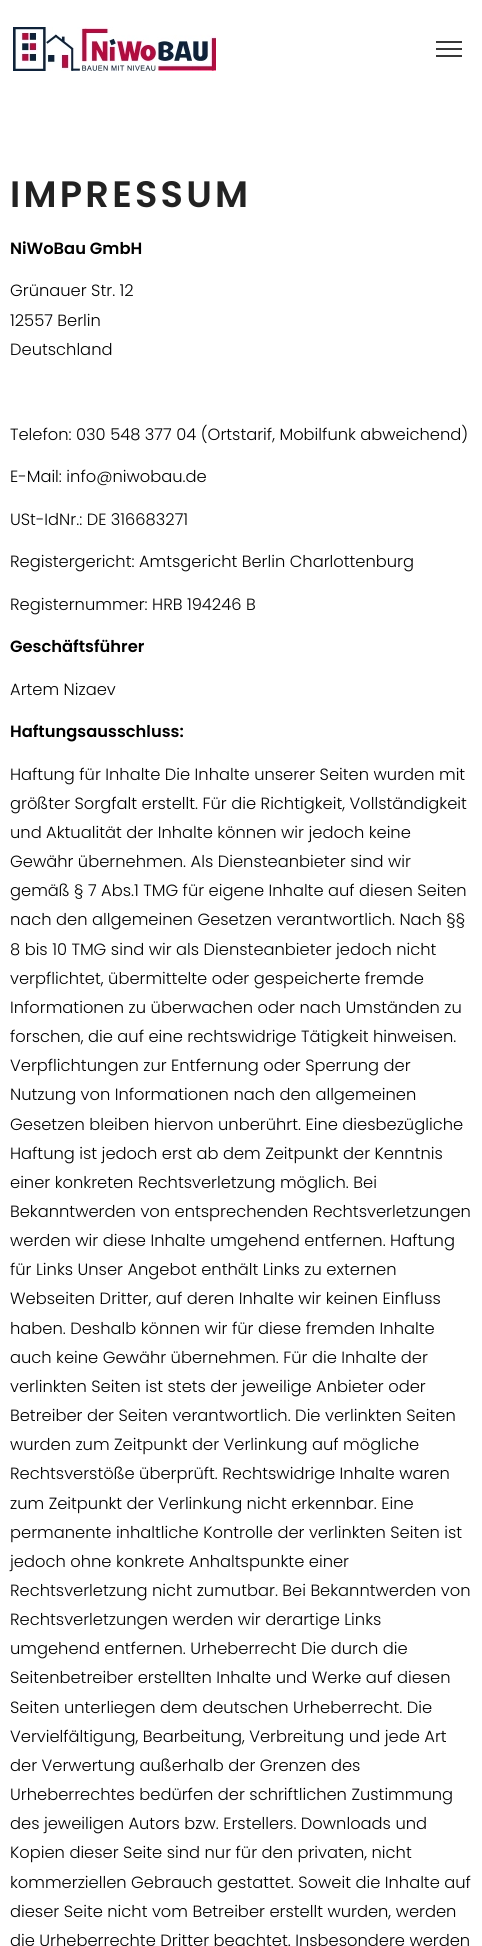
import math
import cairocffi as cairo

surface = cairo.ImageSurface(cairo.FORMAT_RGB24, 482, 1946)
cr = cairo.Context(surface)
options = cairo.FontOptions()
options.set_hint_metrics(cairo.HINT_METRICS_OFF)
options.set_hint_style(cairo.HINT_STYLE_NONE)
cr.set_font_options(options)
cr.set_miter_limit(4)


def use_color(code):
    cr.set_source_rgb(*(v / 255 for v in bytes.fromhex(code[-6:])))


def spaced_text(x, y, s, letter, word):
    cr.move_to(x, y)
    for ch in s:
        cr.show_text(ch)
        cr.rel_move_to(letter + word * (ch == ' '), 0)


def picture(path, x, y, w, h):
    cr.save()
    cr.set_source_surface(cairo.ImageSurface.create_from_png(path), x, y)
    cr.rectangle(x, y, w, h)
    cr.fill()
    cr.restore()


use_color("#ffffff")
cr.paint()
picture("img1.png", 13, 27, 203, 44)
use_color("#383838")
cr.rectangle(436, 41, 26, 2)
cr.fill()
cr.rectangle(436, 55, 26, 2)
cr.fill()
cr.rectangle(436, 48, 26, 2)
cr.fill()
cr.select_font_face("Poppins SemiBold")
cr.set_font_size(36.75)
use_color("#222222")
spaced_text(10, 207, "IMPRESSUM", 3.25, 0)
cr.set_font_size(16.3)
use_color("#000000")
cr.move_to(10, 254)
cr.show_text("NiWoBau GmbH")
cr.select_font_face("Poppins Light")
cr.move_to(10, 296)
cr.show_text("Grünauer Str. 12")
cr.move_to(10, 326)
cr.show_text("12557 Berlin")
cr.move_to(10, 355)
cr.show_text("Deutschland")
cr.move_to(10, 440)
cr.show_text("Telefon: 030 548 377 04 (Ortstarif, Mobilfunk abweichend)")
cr.move_to(10, 482)
cr.show_text("E-Mail: info@niwobau.de")
cr.move_to(10, 525)
cr.show_text("USt-IdNr.: DE 316683271")
cr.move_to(10, 567)
cr.show_text("Registergericht: Amtsgericht Berlin Charlottenburg")
cr.move_to(10, 610)
cr.show_text("Registernummer: HRB 194246 B")
cr.select_font_face("Poppins SemiBold")
cr.move_to(10, 652)
cr.show_text("Geschäftsführer")
cr.select_font_face("Poppins Light")
cr.move_to(10, 695)
cr.show_text("Artem Nizaev")
cr.select_font_face("Poppins SemiBold")
cr.move_to(10, 737)
cr.show_text("Haftungsausschluss:")
cr.select_font_face("Poppins Light")
cr.move_to(10, 780)
cr.show_text("Haftung für Inhalte Die Inhalte unserer Seiten wurden mit")
cr.move_to(10, 809)
cr.show_text("größter Sorgfalt erstellt. Für die Richtigkeit, Vollständigkeit")
cr.move_to(10, 838)
cr.show_text("und Aktualität der Inhalte können wir jedoch keine")
cr.move_to(10, 867)
cr.show_text("Gewähr übernehmen. Als Diensteanbieter sind wir")
cr.move_to(10, 896)
cr.show_text("gemäß § 7 Abs.1 TMG für eigene Inhalte auf diesen Seiten")
cr.move_to(10, 925)
cr.show_text("nach den allgemeinen Gesetzen verantwortlich. Nach §§")
cr.move_to(10, 955)
cr.show_text("8 bis 10 TMG sind wir als Diensteanbieter jedoch nicht")
cr.move_to(10, 984)
cr.show_text("verpflichtet, übermittelte oder gespeicherte fremde")
cr.move_to(10, 1013)
cr.show_text("Informationen zu überwachen oder nach Umständen zu")
cr.move_to(10, 1042)
cr.show_text("forschen, die auf eine rechtswidrige Tätigkeit hinweisen.")
cr.move_to(10, 1071)
cr.show_text("Verpflichtungen zur Entfernung oder Sperrung der")
cr.move_to(10, 1100)
cr.show_text("Nutzung von Informationen nach den allgemeinen")
cr.move_to(10, 1130)
cr.show_text("Gesetzen bleiben hiervon unberührt. Eine diesbezügliche")
cr.move_to(10, 1159)
cr.show_text("Haftung ist jedoch erst ab dem Zeitpunkt der Kenntnis")
cr.move_to(10, 1188)
cr.show_text("einer konkreten Rechtsverletzung möglich. Bei")
cr.move_to(10, 1217)
cr.show_text("Bekanntwerden von entsprechenden Rechtsverletzungen")
cr.move_to(10, 1246)
cr.show_text("werden wir diese Inhalte umgehend entfernen. Haftung")
cr.move_to(10, 1275)
cr.show_text("für Links Unser Angebot enthält Links zu externen")
cr.move_to(10, 1304)
cr.show_text("Webseiten Dritter, auf deren Inhalte wir keinen Einfluss")
cr.move_to(10, 1334)
cr.show_text("haben. Deshalb können wir für diese fremden Inhalte")
cr.move_to(10, 1363)
cr.show_text("auch keine Gewähr übernehmen. Für die Inhalte der")
cr.move_to(10, 1392)
cr.show_text("verlinkten Seiten ist stets der jeweilige Anbieter oder")
cr.move_to(10, 1421)
cr.show_text("Betreiber der Seiten verantwortlich. Die verlinkten Seiten")
cr.move_to(10, 1450)
cr.show_text("wurden zum Zeitpunkt der Verlinkung auf mögliche")
cr.move_to(10, 1479)
cr.show_text("Rechtsverstöße überprüft. Rechtswidrige Inhalte waren")
cr.move_to(10, 1509)
cr.show_text("zum Zeitpunkt der Verlinkung nicht erkennbar. Eine")
cr.move_to(10, 1538)
cr.show_text("permanente inhaltliche Kontrolle der verlinkten Seiten ist")
cr.move_to(10, 1567)
cr.show_text("jedoch ohne konkrete Anhaltspunkte einer")
cr.move_to(10, 1596)
cr.show_text("Rechtsverletzung nicht zumutbar. Bei Bekanntwerden von")
cr.move_to(10, 1625)
cr.show_text("Rechtsverletzungen werden wir derartige Links")
cr.move_to(10, 1654)
cr.show_text("umgehend entfernen. Urheberrecht Die durch die")
cr.move_to(10, 1683)
cr.show_text("Seitenbetreiber erstellten Inhalte und Werke auf diesen")
cr.move_to(10, 1713)
cr.show_text("Seiten unterliegen dem deutschen Urheberrecht. Die")
cr.move_to(10, 1742)
cr.show_text("Vervielfältigung, Bearbeitung, Verbreitung und jede Art")
cr.move_to(10, 1771)
cr.show_text("der Verwertung außerhalb der Grenzen des")
cr.move_to(10, 1800)
cr.show_text("Urheberrechtes bedürfen der schriftlichen Zustimmung")
cr.move_to(10, 1829)
cr.show_text("des jeweiligen Autors bzw. Erstellers. Downloads und")
cr.move_to(10, 1858)
cr.show_text("Kopien dieser Seite sind nur für den privaten, nicht")
cr.move_to(10, 1888)
cr.show_text("kommerziellen Gebrauch gestattet. Soweit die Inhalte auf")
cr.move_to(10, 1917)
cr.show_text("dieser Seite nicht vom Betreiber erstellt wurden, werden")
cr.move_to(10, 1946)
cr.show_text("die Urheberrechte Dritter beachtet. Insbesondere werden")
surface.write_to_png("result.png")
